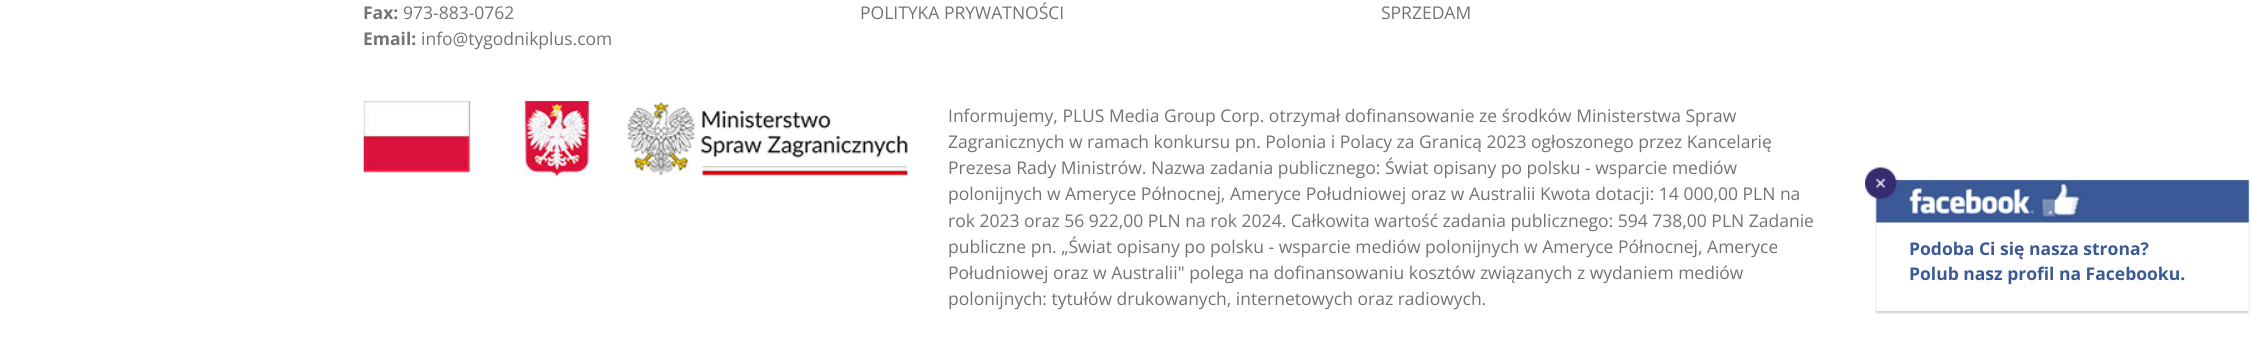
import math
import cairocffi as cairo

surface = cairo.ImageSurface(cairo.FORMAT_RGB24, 2251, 339)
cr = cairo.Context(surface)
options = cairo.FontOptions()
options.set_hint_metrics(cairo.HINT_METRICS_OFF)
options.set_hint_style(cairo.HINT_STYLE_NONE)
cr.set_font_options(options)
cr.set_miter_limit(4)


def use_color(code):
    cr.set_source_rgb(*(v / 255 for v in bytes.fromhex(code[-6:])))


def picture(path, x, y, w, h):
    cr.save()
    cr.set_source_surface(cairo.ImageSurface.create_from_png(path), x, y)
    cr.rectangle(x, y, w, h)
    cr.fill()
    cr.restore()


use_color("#ffffff")
cr.paint()
cr.select_font_face("Open Sans", cairo.FONT_SLANT_NORMAL, cairo.FONT_WEIGHT_BOLD)
cr.set_font_size(17.5)
use_color("#737373")
cr.move_to(363, 19)
cr.show_text("Fax:")
cr.select_font_face("Open Sans")
cr.move_to(403, 19)
cr.show_text("973-883-0762")
cr.select_font_face("Open Sans", cairo.FONT_SLANT_NORMAL, cairo.FONT_WEIGHT_BOLD)
cr.move_to(363, 45)
cr.show_text("Email:")
cr.select_font_face("Open Sans")
cr.move_to(421, 45)
cr.show_text("info@tygodnikplus.com")
cr.move_to(860, 19)
cr.show_text("POLITYKA PRYWATNOŚCI")
cr.move_to(1381, 19)
cr.show_text("SPRZEDAM")
picture("img1.png", 363, 101, 226, 75)
picture("img2.png", 627, 101, 283, 75)
cr.move_to(948, 122)
cr.show_text("Informujemy, PLUS Media Group Corp. otrzymał dofinansowanie ze środków Ministerstwa Spraw")
cr.move_to(948, 148)
cr.show_text("Zagranicznych w ramach konkursu pn. Polonia i Polacy za Granicą 2023 ogłoszonego przez Kancelarię")
cr.move_to(948, 174)
cr.show_text("Prezesa Rady Ministrów. Nazwa zadania publicznego: Świat opisany po polsku - wsparcie mediów")
cr.move_to(948, 200)
cr.show_text("polonijnych w Ameryce Północnej, Ameryce Południowej oraz w Australii Kwota dotacji: 14 000,00 PLN na")
cr.move_to(948, 227)
cr.show_text("rok 2023 oraz 56 922,00 PLN na rok 2024. Całkowita wartość zadania publicznego: 594 738,00 PLN Zadanie")
cr.move_to(948, 253)
cr.show_text("publiczne pn. „Świat opisany po polsku - wsparcie mediów polonijnych w Ameryce Północnej, Ameryce")
cr.move_to(948, 279)
cr.show_text("Południowej oraz w Australii\" polega na dofinansowaniu kosztów związanych z wydaniem mediów")
cr.move_to(948, 305)
cr.show_text("polonijnych: tytułów drukowanych, internetowych oraz radiowych.")
picture("img3.png", 1865, 167, 385, 147)
cr.select_font_face("Open Sans", cairo.FONT_SLANT_NORMAL, cairo.FONT_WEIGHT_BOLD)
use_color("#3b5997")
cr.move_to(1909, 255)
cr.show_text("Podoba Ci się nasza strona?")
cr.move_to(1909, 280)
cr.show_text("Polub nasz profil na Facebooku.")
surface.write_to_png("result.png")
